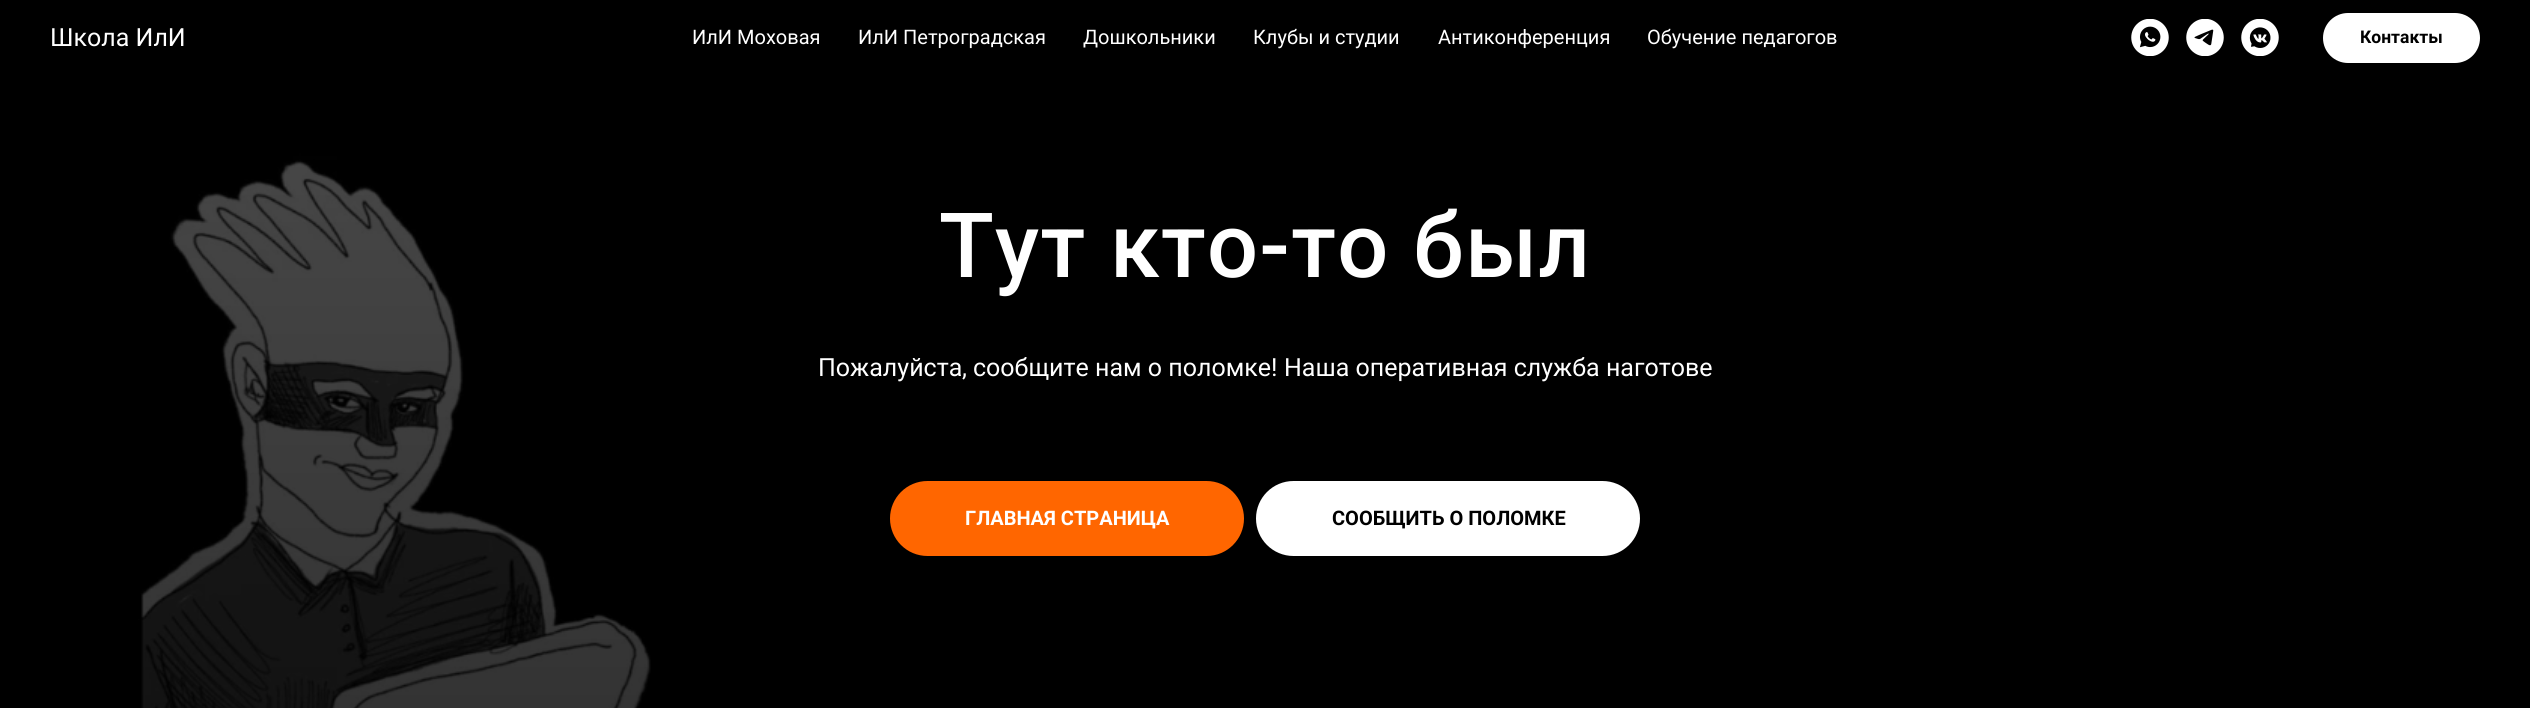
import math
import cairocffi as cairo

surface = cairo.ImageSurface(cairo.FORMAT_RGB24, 2530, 708)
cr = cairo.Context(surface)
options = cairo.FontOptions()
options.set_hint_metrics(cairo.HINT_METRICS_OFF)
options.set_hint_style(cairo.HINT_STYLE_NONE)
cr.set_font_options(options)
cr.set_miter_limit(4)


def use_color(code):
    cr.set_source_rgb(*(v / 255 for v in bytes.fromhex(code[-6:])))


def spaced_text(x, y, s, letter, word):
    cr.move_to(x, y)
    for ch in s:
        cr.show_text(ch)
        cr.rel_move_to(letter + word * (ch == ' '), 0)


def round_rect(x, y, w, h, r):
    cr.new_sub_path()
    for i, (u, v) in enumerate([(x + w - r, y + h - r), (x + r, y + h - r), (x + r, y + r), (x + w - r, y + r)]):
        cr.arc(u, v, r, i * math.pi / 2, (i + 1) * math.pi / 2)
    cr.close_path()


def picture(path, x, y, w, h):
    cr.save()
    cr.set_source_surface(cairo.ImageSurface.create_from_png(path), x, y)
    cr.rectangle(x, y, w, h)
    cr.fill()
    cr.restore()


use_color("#000000")
cr.paint()
cr.select_font_face("Roboto")
cr.set_font_size(25)
use_color("#ffffff")
cr.move_to(50, 46)
cr.show_text("Школа ИлИ")
cr.set_font_size(20)
cr.move_to(692, 44)
cr.show_text("ИлИ Моховая")
cr.move_to(858, 44)
cr.show_text("ИлИ Петроградская")
cr.move_to(1083, 44)
cr.show_text("Дошкольники")
cr.move_to(1253, 44)
cr.show_text("Клубы и студии")
cr.move_to(1438, 44)
cr.show_text("Антиконференция")
cr.move_to(1647, 44)
cr.show_text("Обучение педагогов")
picture("img1.png", 2131, 19, 38, 37)
picture("img2.png", 2186, 19, 38, 37)
picture("img3.png", 2241, 19, 38, 37)
round_rect(2323, 13, 157, 50, 25)
cr.fill()
cr.select_font_face("Roboto", cairo.FONT_SLANT_NORMAL, cairo.FONT_WEIGHT_BOLD)
cr.set_font_size(17.5)
use_color("#000000")
cr.move_to(2360, 43)
cr.show_text("Контакты")
picture("img4.png", 71, 101, 712, 607)
gradient = cairo.LinearGradient(1265, 0, 1265, 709)
gradient.add_color_stop_rgba(0, 0, 0, 0, 0.7)
gradient.add_color_stop_rgba(1, 0, 0, 0, 0.8)
cr.set_source(gradient)
cr.rectangle(139, 160, 512, 548)
cr.fill()
cr.select_font_face("Roboto Medium")
cr.set_font_size(90)
use_color("#ffffff")
spaced_text(939, 277, "Тут кто-то был", 1.25, 0)
cr.select_font_face("Roboto")
cr.set_font_size(25)
cr.move_to(818, 376)
cr.show_text("Пожалуйста")
cr.select_font_face("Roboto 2")
cr.move_to(962, 376)
cr.show_text(",")
cr.select_font_face("Roboto")
cr.move_to(973, 376)
cr.show_text("сообщите нам о поломке")
cr.select_font_face("Roboto 2")
cr.move_to(1271, 376)
cr.show_text("!")
cr.select_font_face("Roboto")
cr.move_to(1284, 376)
cr.show_text("Наша оперативная служба наготове")
use_color("#ff6600")
round_rect(890, 481, 354, 75, 37.5)
cr.fill()
cr.select_font_face("Roboto", cairo.FONT_SLANT_NORMAL, cairo.FONT_WEIGHT_BOLD)
cr.set_font_size(20)
use_color("#ffffff")
cr.move_to(965, 525)
cr.show_text("ГЛАВНАЯ СТРАНИЦА")
round_rect(1256, 481, 384, 75, 37.5)
cr.fill()
use_color("#000000")
cr.move_to(1332, 525)
cr.show_text("СООБЩИТЬ О ПОЛОМКЕ")
surface.write_to_png("result.png")
